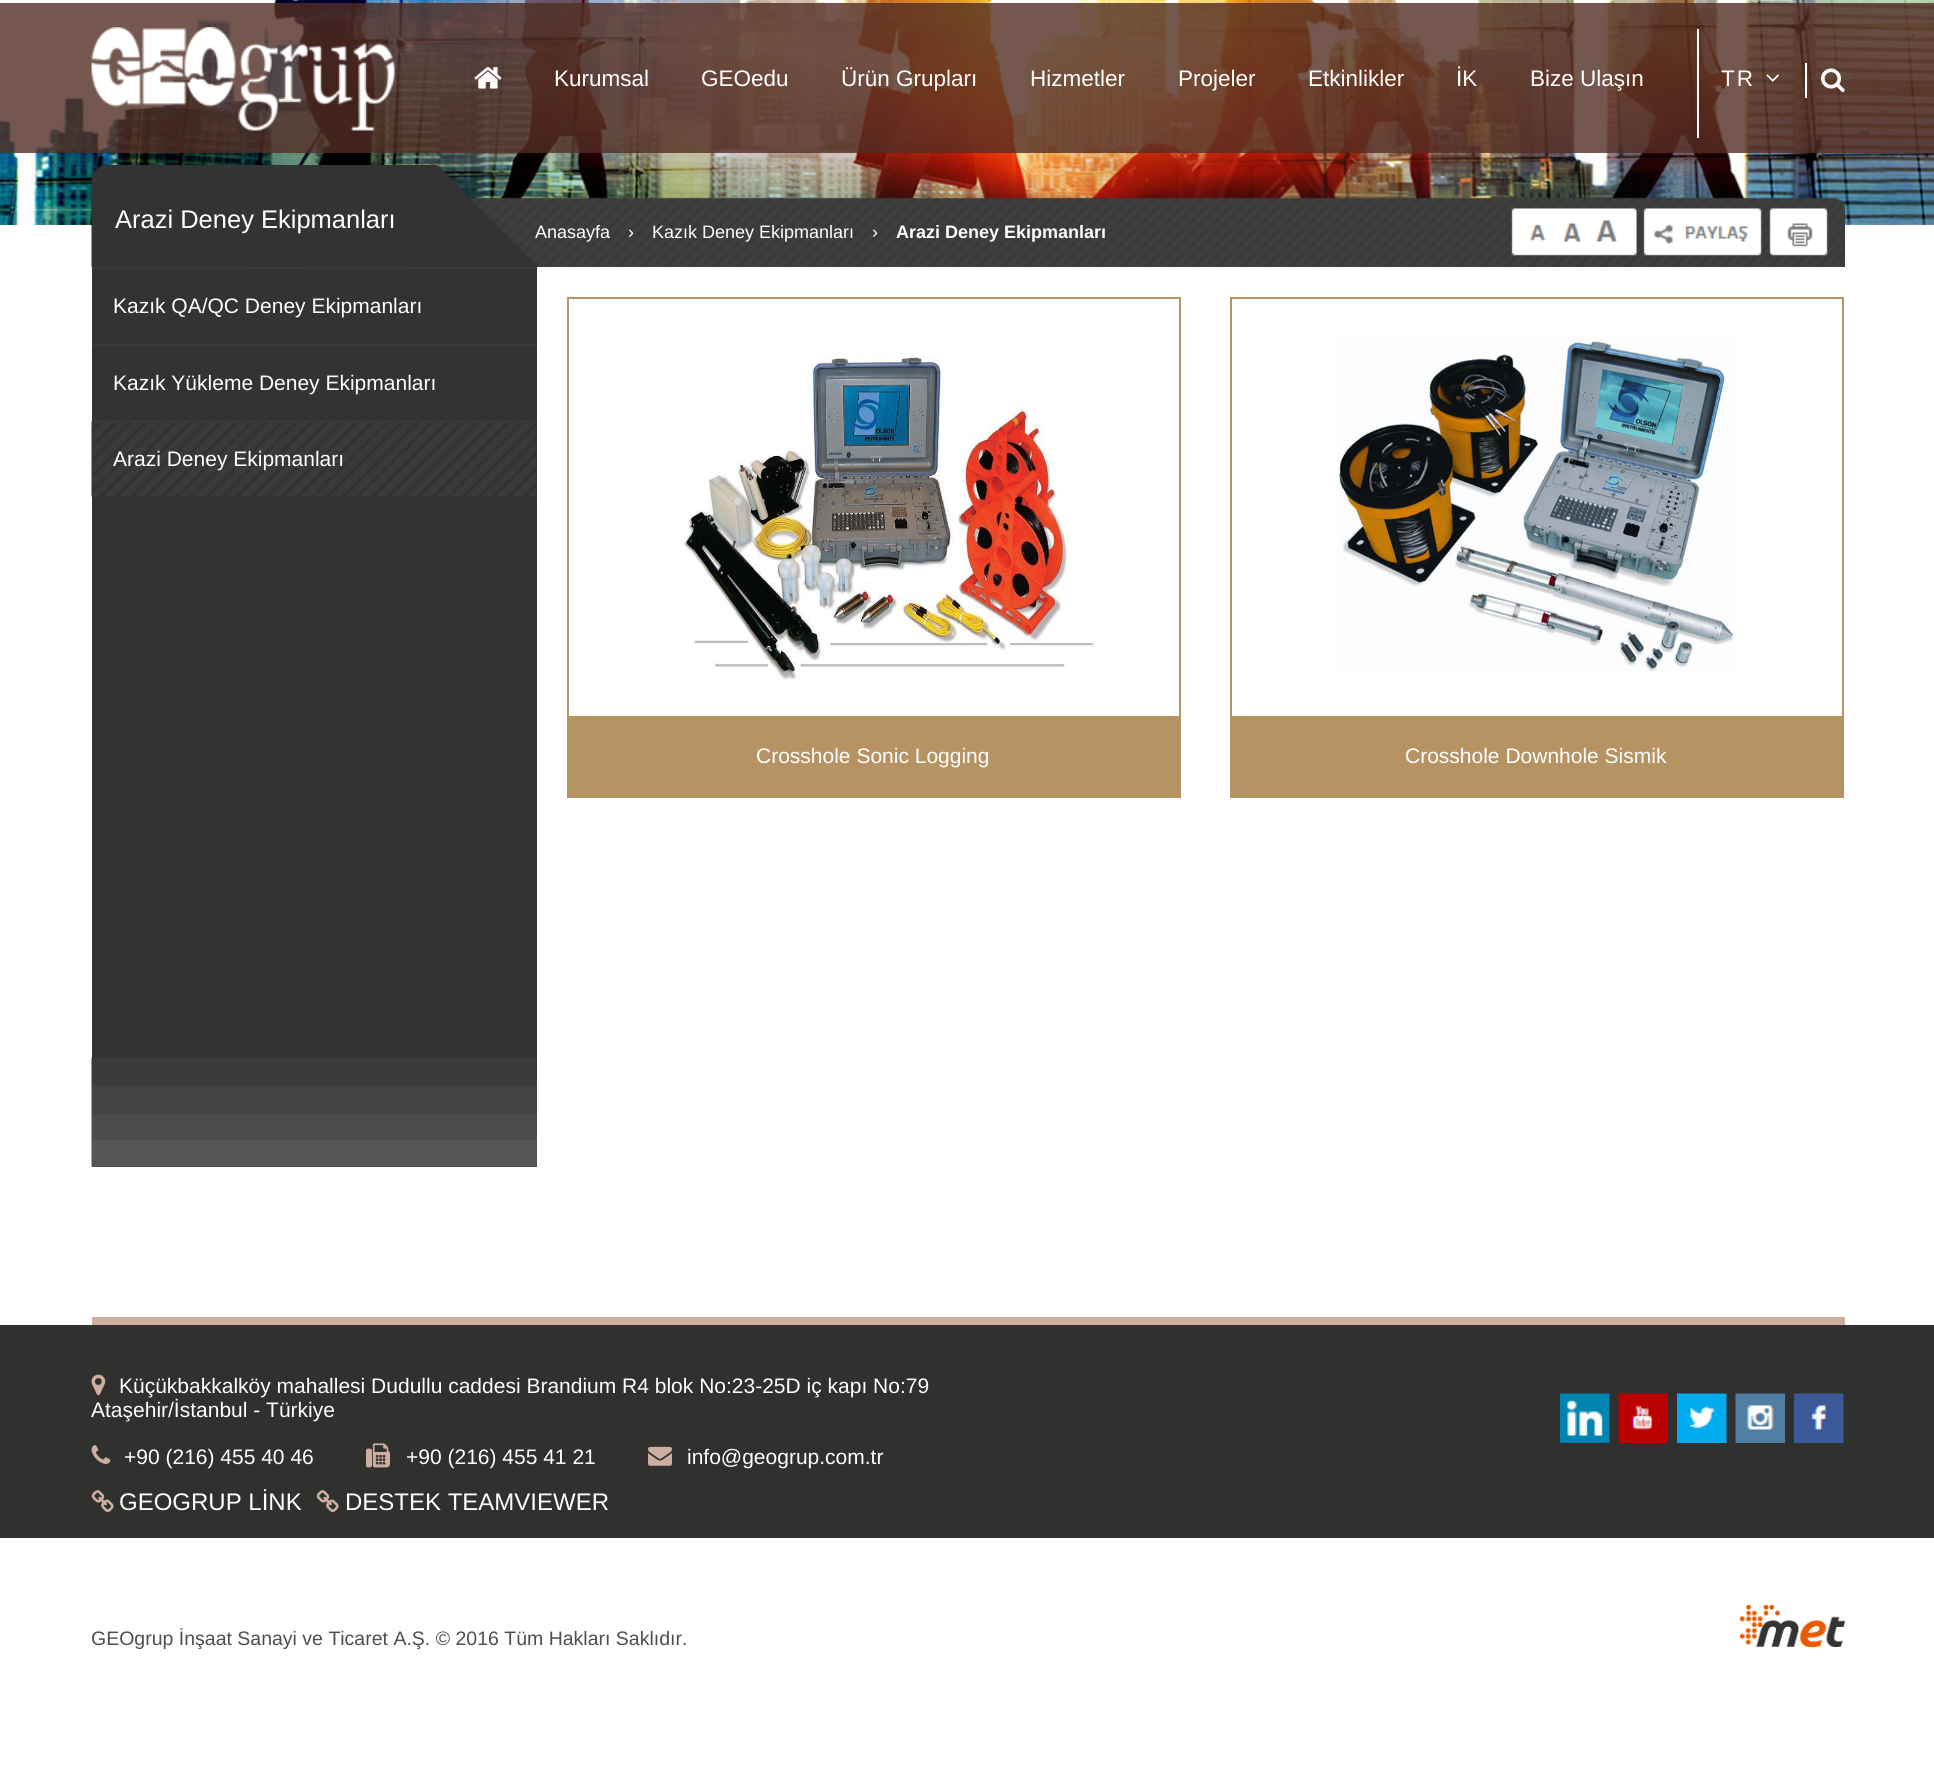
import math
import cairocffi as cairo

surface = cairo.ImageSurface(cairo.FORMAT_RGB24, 1934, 1785)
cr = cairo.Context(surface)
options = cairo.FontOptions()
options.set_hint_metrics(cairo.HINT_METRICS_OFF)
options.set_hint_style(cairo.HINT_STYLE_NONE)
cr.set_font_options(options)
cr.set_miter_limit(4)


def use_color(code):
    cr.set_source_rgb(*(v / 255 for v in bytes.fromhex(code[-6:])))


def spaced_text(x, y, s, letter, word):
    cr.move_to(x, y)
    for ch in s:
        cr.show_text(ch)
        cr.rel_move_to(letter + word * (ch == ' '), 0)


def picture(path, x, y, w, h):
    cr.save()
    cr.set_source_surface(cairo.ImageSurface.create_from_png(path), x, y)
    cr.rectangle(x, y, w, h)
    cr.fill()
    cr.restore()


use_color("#ffffff")
cr.paint()
picture("img1.png", 0, 0, 1934, 225)
cr.set_source_rgba(0.322, 0.176, 0.141, 0.8)
cr.rectangle(0, 3, 1934, 150)
cr.fill()
picture("img2.png", 91, 27, 304, 104)
picture("img3.png", 474, 67, 28, 22)
cr.select_font_face("Liberation Sans")
cr.set_font_size(22.5)
use_color("#ffffff")
cr.move_to(554, 86)
cr.show_text("Kurumsal")
cr.move_to(701, 86)
cr.show_text("GEOedu")
cr.move_to(841, 86)
cr.show_text("Ürün Grupları")
cr.move_to(1030, 86)
cr.show_text("Hizmetler")
cr.move_to(1178, 86)
cr.show_text("Projeler")
cr.move_to(1308, 86)
cr.show_text("Etkinlikler")
cr.move_to(1456, 86)
cr.show_text("İK")
cr.move_to(1530, 86)
cr.show_text("Bize Ulaşın")
cr.rectangle(1697, 29, 2, 109)
cr.fill()
cr.rectangle(1805, 63, 2, 35)
cr.fill()
spaced_text(1721, 86, "TR", 2, 0)
picture("img4.png", 1766, 74, 13, 8)
picture("img5.png", 1821, 68, 24, 25)
picture("img6.png", 91, 165, 1754, 102)
cr.set_font_size(25.5)
cr.move_to(115, 228)
cr.show_text("Arazi Deney Ekipmanları")
cr.set_font_size(18)
cr.move_to(535, 238)
cr.show_text("Anasayfa")
cr.move_to(628, 238)
cr.show_text("›")
cr.move_to(652, 238)
cr.show_text("Kazık Deney Ekipmanları")
cr.move_to(872, 238)
cr.show_text("›")
cr.select_font_face("Liberation Sans", cairo.FONT_SLANT_NORMAL, cairo.FONT_WEIGHT_BOLD)
cr.move_to(896, 238)
cr.show_text("Arazi Deney Ekipmanları")
use_color("#333333")
cr.rectangle(92, 269, 445, 898)
cr.fill()
use_color("#3a3939")
cr.rectangle(92, 267, 445, 2)
cr.fill()
cr.select_font_face("Liberation Sans")
cr.set_font_size(21)
use_color("#ffffff")
cr.move_to(113, 313)
cr.show_text("Kazık QA/QC Deney Ekipmanları")
use_color("#3a3939")
cr.rectangle(92, 344, 445, 2)
cr.fill()
use_color("#ffffff")
cr.move_to(113, 390)
cr.show_text("Kazık Yükleme Deney Ekipmanları")
picture("img7.png", 91, 421, 446, 76)
use_color("#3a3939")
cr.rectangle(92, 420, 445, 2)
cr.fill()
use_color("#ffffff")
cr.move_to(113, 466)
cr.show_text("Arazi Deney Ekipmanları")
picture("img8.png", 91, 1057, 446, 110)
cr.rectangle(568, 298, 612, 499)
use_color("#b79363")
cr.stroke()
picture("img9.png", 681, 351, 413, 330)
cr.rectangle(569, 716, 610, 80)
cr.fill()
use_color("#ffffff")
cr.move_to(756, 763)
cr.show_text("Crosshole Sonic Logging")
cr.rectangle(1231, 298, 612, 499)
use_color("#b79363")
cr.stroke()
picture("img10.png", 1338, 338, 396, 334)
cr.rectangle(1232, 716, 610, 80)
cr.fill()
use_color("#ffffff")
cr.move_to(1405, 763)
cr.show_text("Crosshole Downhole Sismik")
use_color("#30302e")
cr.rectangle(0, 1325, 1934, 213)
cr.fill()
use_color("#cfaea2")
cr.rectangle(92, 1317, 1753, 8)
cr.fill()
picture("img11.png", 91, 1374, 15, 22)
use_color("#ffffff")
cr.move_to(119, 1393)
cr.show_text("Küçükbakkalköy mahallesi Dudullu caddesi Brandium R4 blok No:23-25D iç kapı No:79")
cr.move_to(91, 1417)
cr.show_text("Ataşehir/İstanbul - Türkiye")
picture("img12.png", 91, 1445, 20, 19)
cr.move_to(124, 1464)
cr.show_text("+90 (216) 455 40 46")
picture("img13.png", 366, 1443, 24, 25)
cr.move_to(406, 1464)
cr.show_text("+90 (216) 455 41 21")
picture("img14.png", 648, 1446, 24, 20)
cr.move_to(687, 1464)
cr.show_text("info@geogrup.com.tr")
picture("img15.png", 91, 1490, 23, 22)
cr.set_font_size(24)
cr.move_to(119, 1510)
cr.show_text("GEOGRUP LİNK")
picture("img15.png", 316, 1490, 23, 22)
cr.move_to(345, 1510)
cr.show_text("DESTEK TEAMVIEWER")
picture("img16.png", 1560, 1393, 50, 50)
picture("img17.png", 1618, 1393, 50, 50)
picture("img18.png", 1677, 1393, 50, 50)
picture("img19.png", 1735, 1393, 50, 50)
picture("img20.png", 1794, 1393, 50, 50)
cr.set_font_size(19.5)
use_color("#4e4e4e")
cr.move_to(91, 1645)
cr.show_text("GEOgrup İnşaat Sanayi ve Ticaret A.Ş. © 2016 Tüm Hakları Saklıdır.")
picture("img21.png", 1740, 1605, 105, 42)
surface.write_to_png("result.png")
